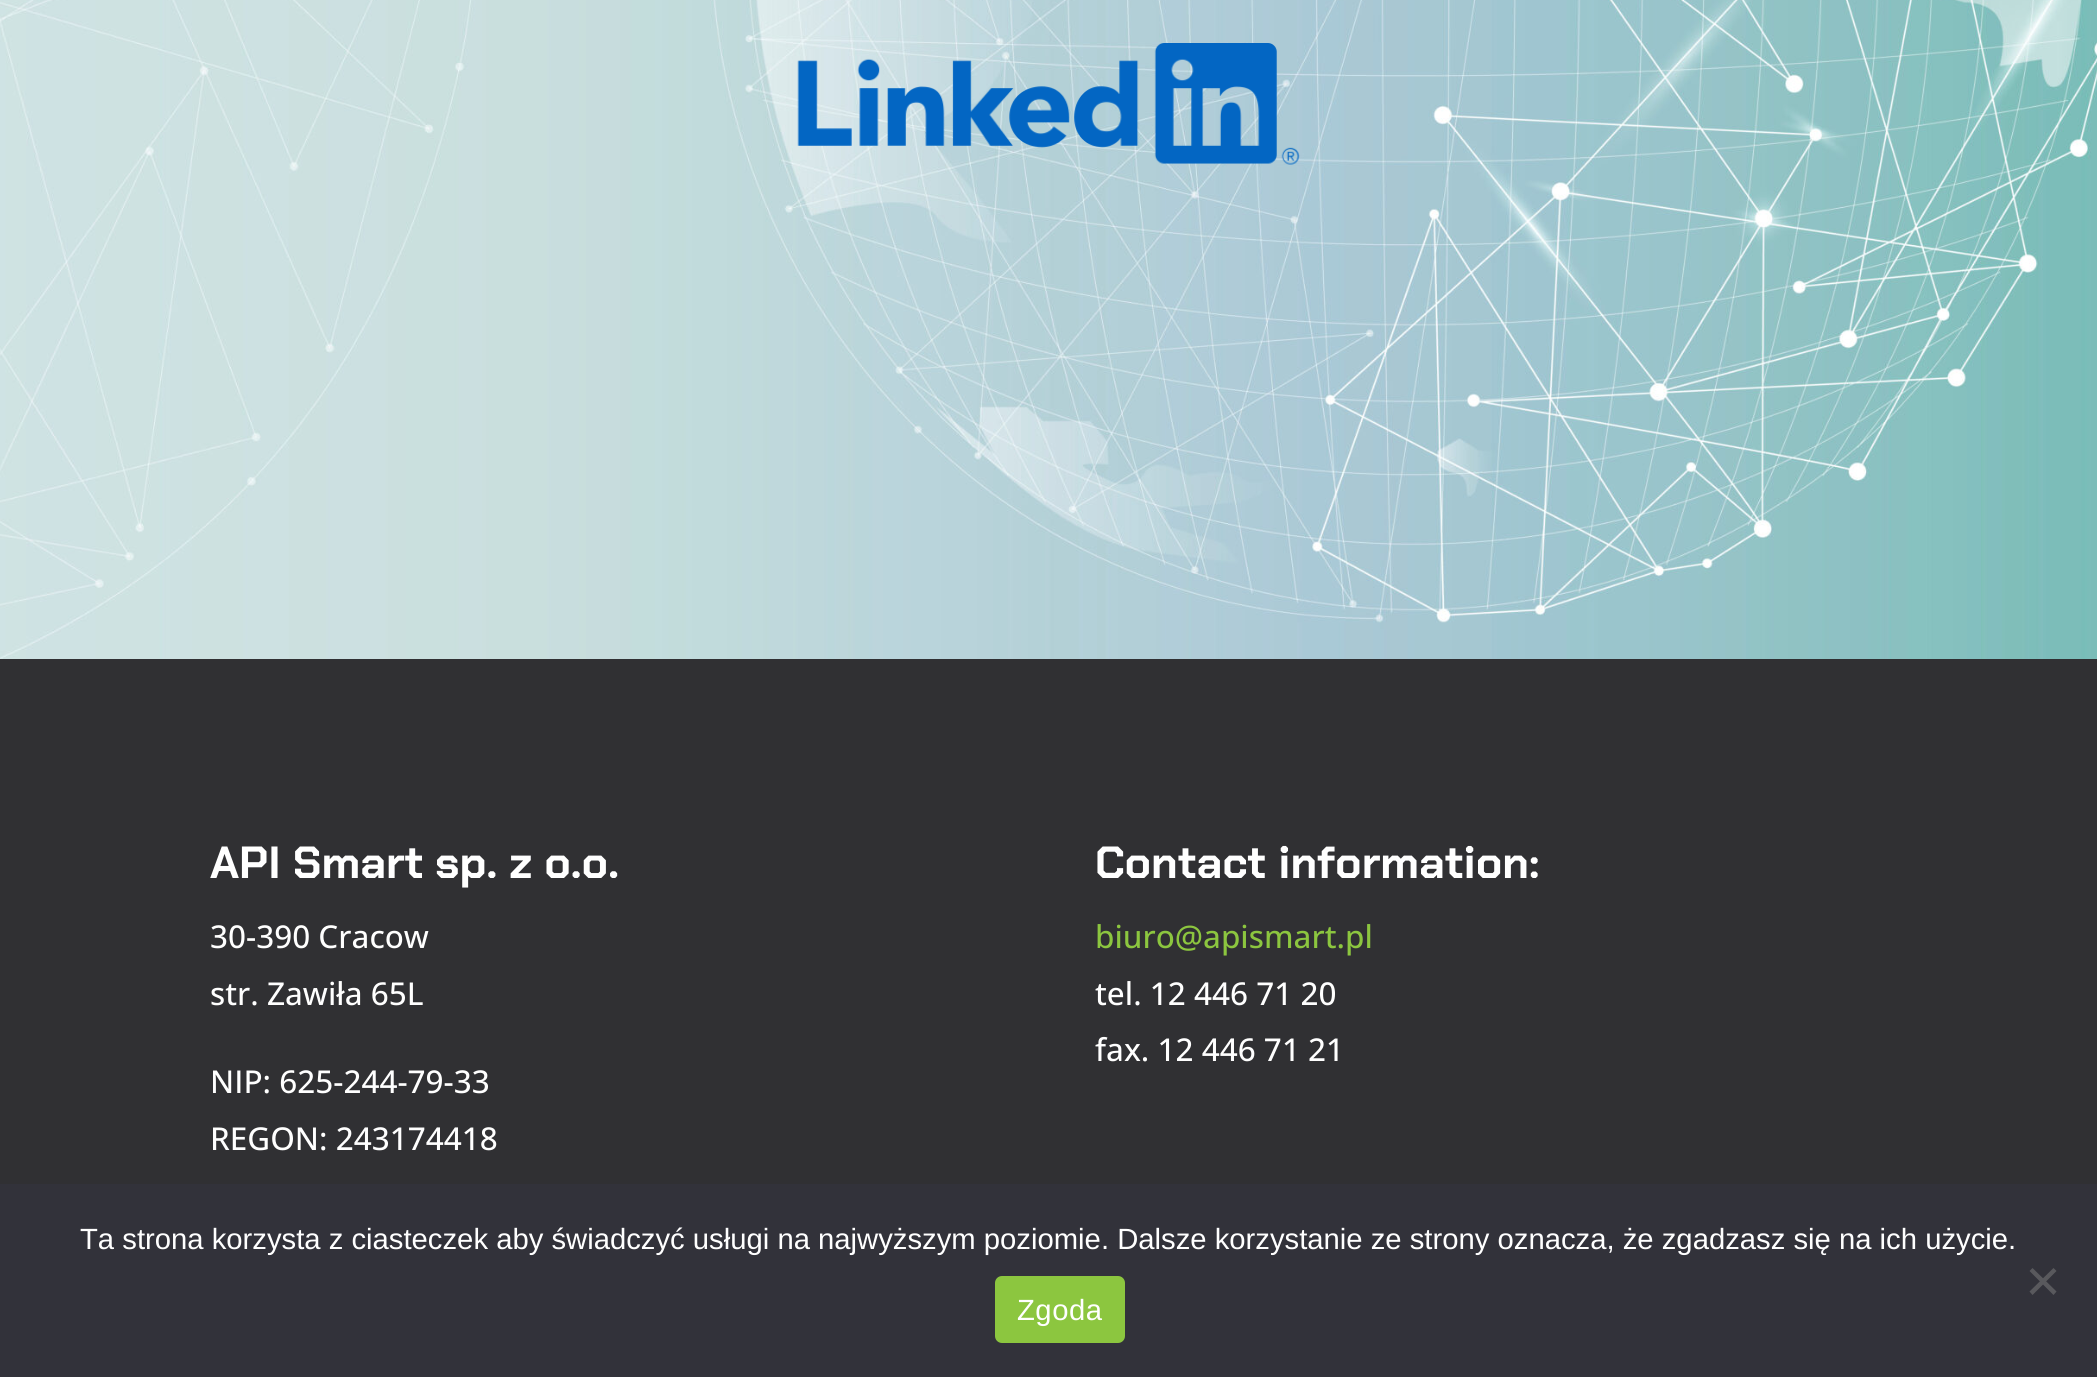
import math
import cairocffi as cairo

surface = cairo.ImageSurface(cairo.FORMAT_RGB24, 2097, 1377)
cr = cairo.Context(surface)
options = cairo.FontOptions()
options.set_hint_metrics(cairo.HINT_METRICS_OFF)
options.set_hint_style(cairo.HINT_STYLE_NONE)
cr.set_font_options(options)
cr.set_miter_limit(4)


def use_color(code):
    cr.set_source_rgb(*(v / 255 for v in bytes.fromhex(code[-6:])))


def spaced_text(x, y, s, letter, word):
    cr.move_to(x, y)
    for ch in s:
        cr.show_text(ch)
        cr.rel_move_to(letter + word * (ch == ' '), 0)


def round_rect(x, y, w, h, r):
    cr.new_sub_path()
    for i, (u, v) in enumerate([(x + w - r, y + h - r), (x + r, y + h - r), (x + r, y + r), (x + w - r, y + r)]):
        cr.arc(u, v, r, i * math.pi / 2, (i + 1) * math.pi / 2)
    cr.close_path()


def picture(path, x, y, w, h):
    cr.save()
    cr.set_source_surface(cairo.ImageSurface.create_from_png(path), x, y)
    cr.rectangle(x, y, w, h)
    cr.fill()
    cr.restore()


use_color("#ffffff")
cr.paint()
picture("img1.png", 0, 0, 2097, 659)
picture("img2.png", 797, 43, 503, 122)
use_color("#303033")
cr.rectangle(0, 659, 2097, 525)
cr.fill()
cr.select_font_face("Chakra Petch", cairo.FONT_SLANT_NORMAL, cairo.FONT_WEIGHT_BOLD)
cr.set_font_size(45)
use_color("#ffffff")
cr.move_to(210, 878)
cr.show_text("API Smart sp. z o.o.")
cr.select_font_face("Open Sans Medium")
cr.set_font_size(31.5)
cr.move_to(210, 948)
cr.show_text("30-390 Cracow")
cr.move_to(210, 1005)
cr.show_text("str. Zawiła 65L")
cr.move_to(210, 1093)
cr.show_text("NIP: 625-244-79-33")
cr.move_to(210, 1150)
cr.show_text("REGON: 243174418")
cr.select_font_face("Chakra Petch", cairo.FONT_SLANT_NORMAL, cairo.FONT_WEIGHT_BOLD)
cr.set_font_size(45)
cr.move_to(1095, 878)
cr.show_text("Contact information:")
cr.select_font_face("Open Sans Medium")
cr.set_font_size(31.5)
use_color("#8cc63f")
cr.move_to(1095, 948)
cr.show_text("biuro@apismart.pl")
use_color("#ffffff")
cr.move_to(1095, 1005)
cr.show_text("tel. 12 446 71 20")
cr.move_to(1095, 1061)
cr.show_text("fax. 12 446 71 21")
use_color("#32323a")
cr.rectangle(0, 1184, 2097, 193)
cr.fill()
cr.select_font_face("Liberation Sans")
cr.set_font_size(29.25)
use_color("#ffffff")
cr.move_to(80, 1249)
cr.show_text("Ta strona korzysta z ciasteczek aby świadczyć usługi na najwyższym poziomie. Dalsze korzystanie ze strony oznacza, że zgadzasz się na ich użycie.")
use_color("#59595d")
cr.new_path()
cr.move_to(2053.5, 1268)
cr.line_to(2056.5, 1271)
cr.line_to(2032.5, 1295)
cr.line_to(2029.5, 1291.5)
cr.close_path()
cr.fill()
cr.new_path()
cr.move_to(2029.5, 1271)
cr.line_to(2032.5, 1268)
cr.line_to(2056.5, 1291.5)
cr.line_to(2053.5, 1295)
cr.close_path()
cr.fill()
use_color("#8cc63f")
round_rect(995, 1276, 130, 67, 7)
cr.fill()
use_color("#ffffff")
spaced_text(1017, 1320, "Zgoda", 0.5, 0)
surface.write_to_png("result.png")
